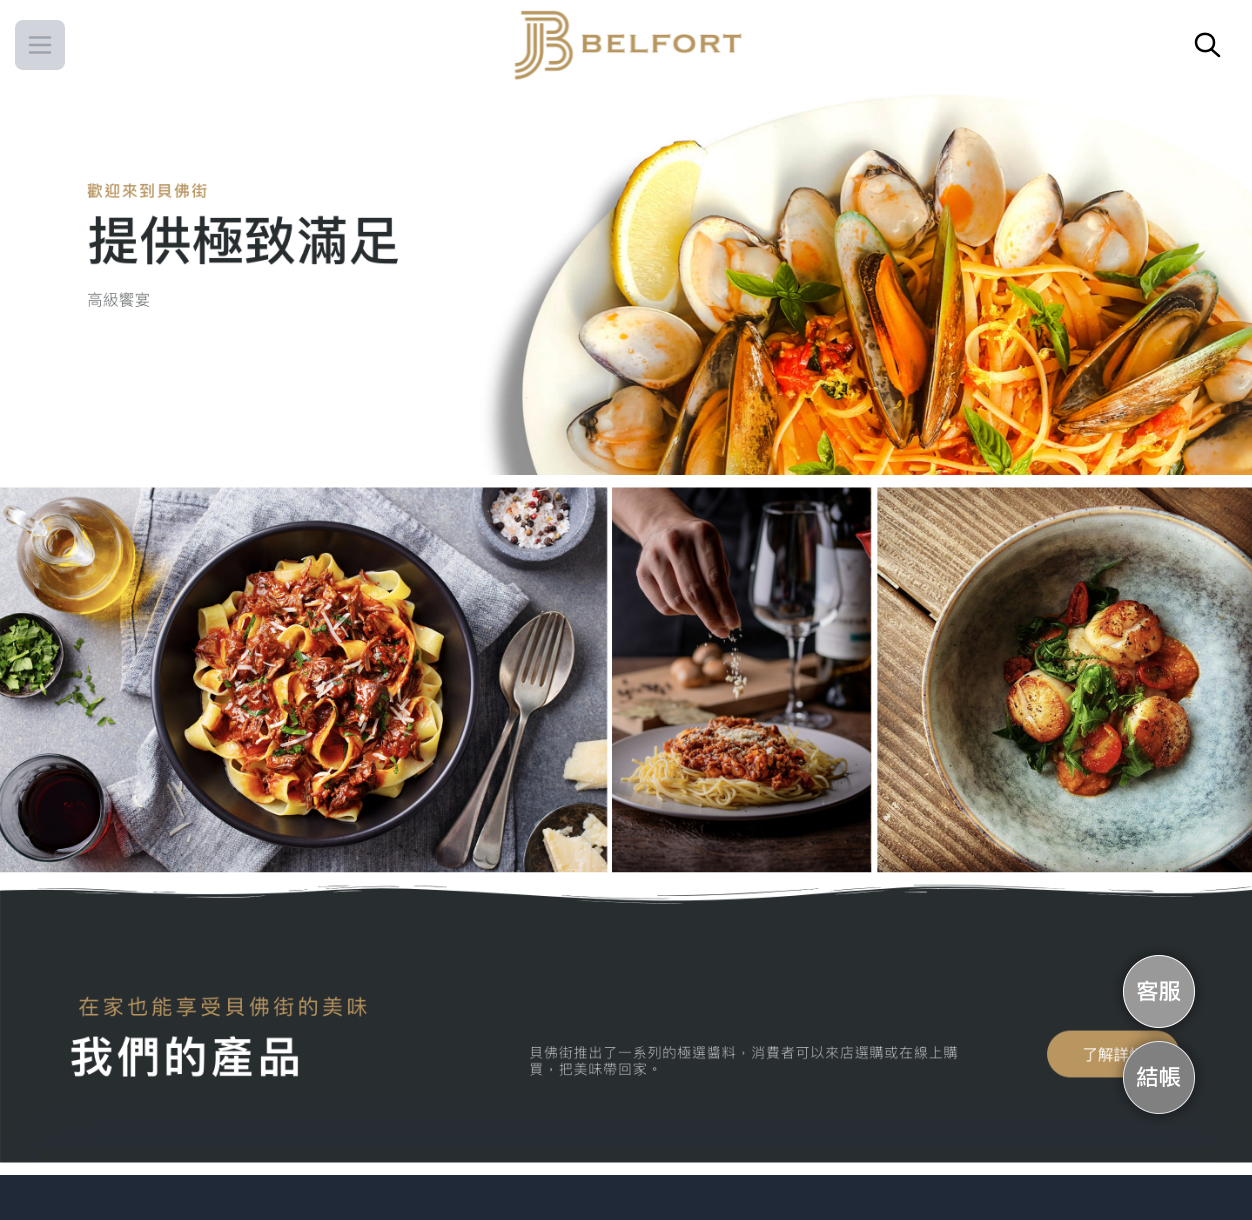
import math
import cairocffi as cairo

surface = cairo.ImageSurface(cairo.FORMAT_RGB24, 1252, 1220)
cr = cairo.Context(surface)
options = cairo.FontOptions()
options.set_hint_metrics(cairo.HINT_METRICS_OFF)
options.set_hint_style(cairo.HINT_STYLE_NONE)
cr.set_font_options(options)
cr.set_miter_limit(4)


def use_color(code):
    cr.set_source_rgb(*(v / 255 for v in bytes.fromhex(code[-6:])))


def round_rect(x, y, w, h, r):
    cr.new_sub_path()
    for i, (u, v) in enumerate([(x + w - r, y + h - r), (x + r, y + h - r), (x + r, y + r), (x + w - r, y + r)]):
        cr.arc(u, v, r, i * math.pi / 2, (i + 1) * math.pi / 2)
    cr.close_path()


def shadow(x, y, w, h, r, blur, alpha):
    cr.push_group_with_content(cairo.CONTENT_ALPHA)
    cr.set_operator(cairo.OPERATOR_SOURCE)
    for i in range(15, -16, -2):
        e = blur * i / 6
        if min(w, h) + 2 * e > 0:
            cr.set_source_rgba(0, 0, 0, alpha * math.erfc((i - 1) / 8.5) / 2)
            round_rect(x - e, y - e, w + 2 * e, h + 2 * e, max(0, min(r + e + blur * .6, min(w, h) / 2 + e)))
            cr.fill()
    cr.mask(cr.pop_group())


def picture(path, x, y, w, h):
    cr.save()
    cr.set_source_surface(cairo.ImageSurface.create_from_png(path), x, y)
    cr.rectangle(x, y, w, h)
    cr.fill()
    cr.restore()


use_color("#ffffff")
cr.paint()
use_color("#d1d5db")
round_rect(15, 20, 50, 50, 8)
cr.fill()
cr.new_path()
cr.move_to(30, 37.5)
cr.line_to(50, 37.5)
cr.move_to(30, 45)
cr.line_to(50, 45)
cr.move_to(30, 52.5)
cr.line_to(50, 52.5)
use_color("#9ca3af")
cr.set_line_width(2.5)
cr.set_line_cap(cairo.LINE_CAP_ROUND)
cr.set_line_join(cairo.LINE_JOIN_ROUND)
cr.stroke()
picture("img1.png", 514, 10, 228, 70)
cr.new_path()
cr.move_to(1219, 56)
cr.line_to(1211, 49)
cr.move_to(1214, 42.5)
cr.curve_to(1214, 54, 1196.5, 54, 1196, 42.5)
cr.curve_to(1196, 31, 1214, 31, 1214, 42.5)
cr.close_path()
use_color("#000000")
cr.stroke()
picture("img2.png", 87, 94, 1165, 381)
picture("img3.png", 0, 487, 1252, 386)
picture("img4.png", 0, 872, 1252, 291)
use_color("#1f2937")
cr.rectangle(0, 1175, 1252, 45)
cr.fill()
use_color("#000000")
shadow(1123, 955, 72, 73, 36, 6.5, 0.5)
use_color("#999999")
round_rect(1123.5, 955.5, 71, 72, 35.5)
cr.fill_preserve()
use_color("#ffffff")
cr.set_line_width(1)
cr.set_line_cap(cairo.LINE_CAP_BUTT)
cr.set_line_join(cairo.LINE_JOIN_MITER)
cr.stroke()
picture("img5.png", 1137, 980, 44, 22)
use_color("#000000")
shadow(1123, 1041, 72, 73, 36, 6.5, 0.5)
use_color("#808080")
round_rect(1123.5, 1041.5, 71, 72, 35.5)
cr.fill_preserve()
use_color("#e5e7eb")
cr.stroke()
picture("img6.png", 1136, 1066, 45, 22)
surface.write_to_png("result.png")
